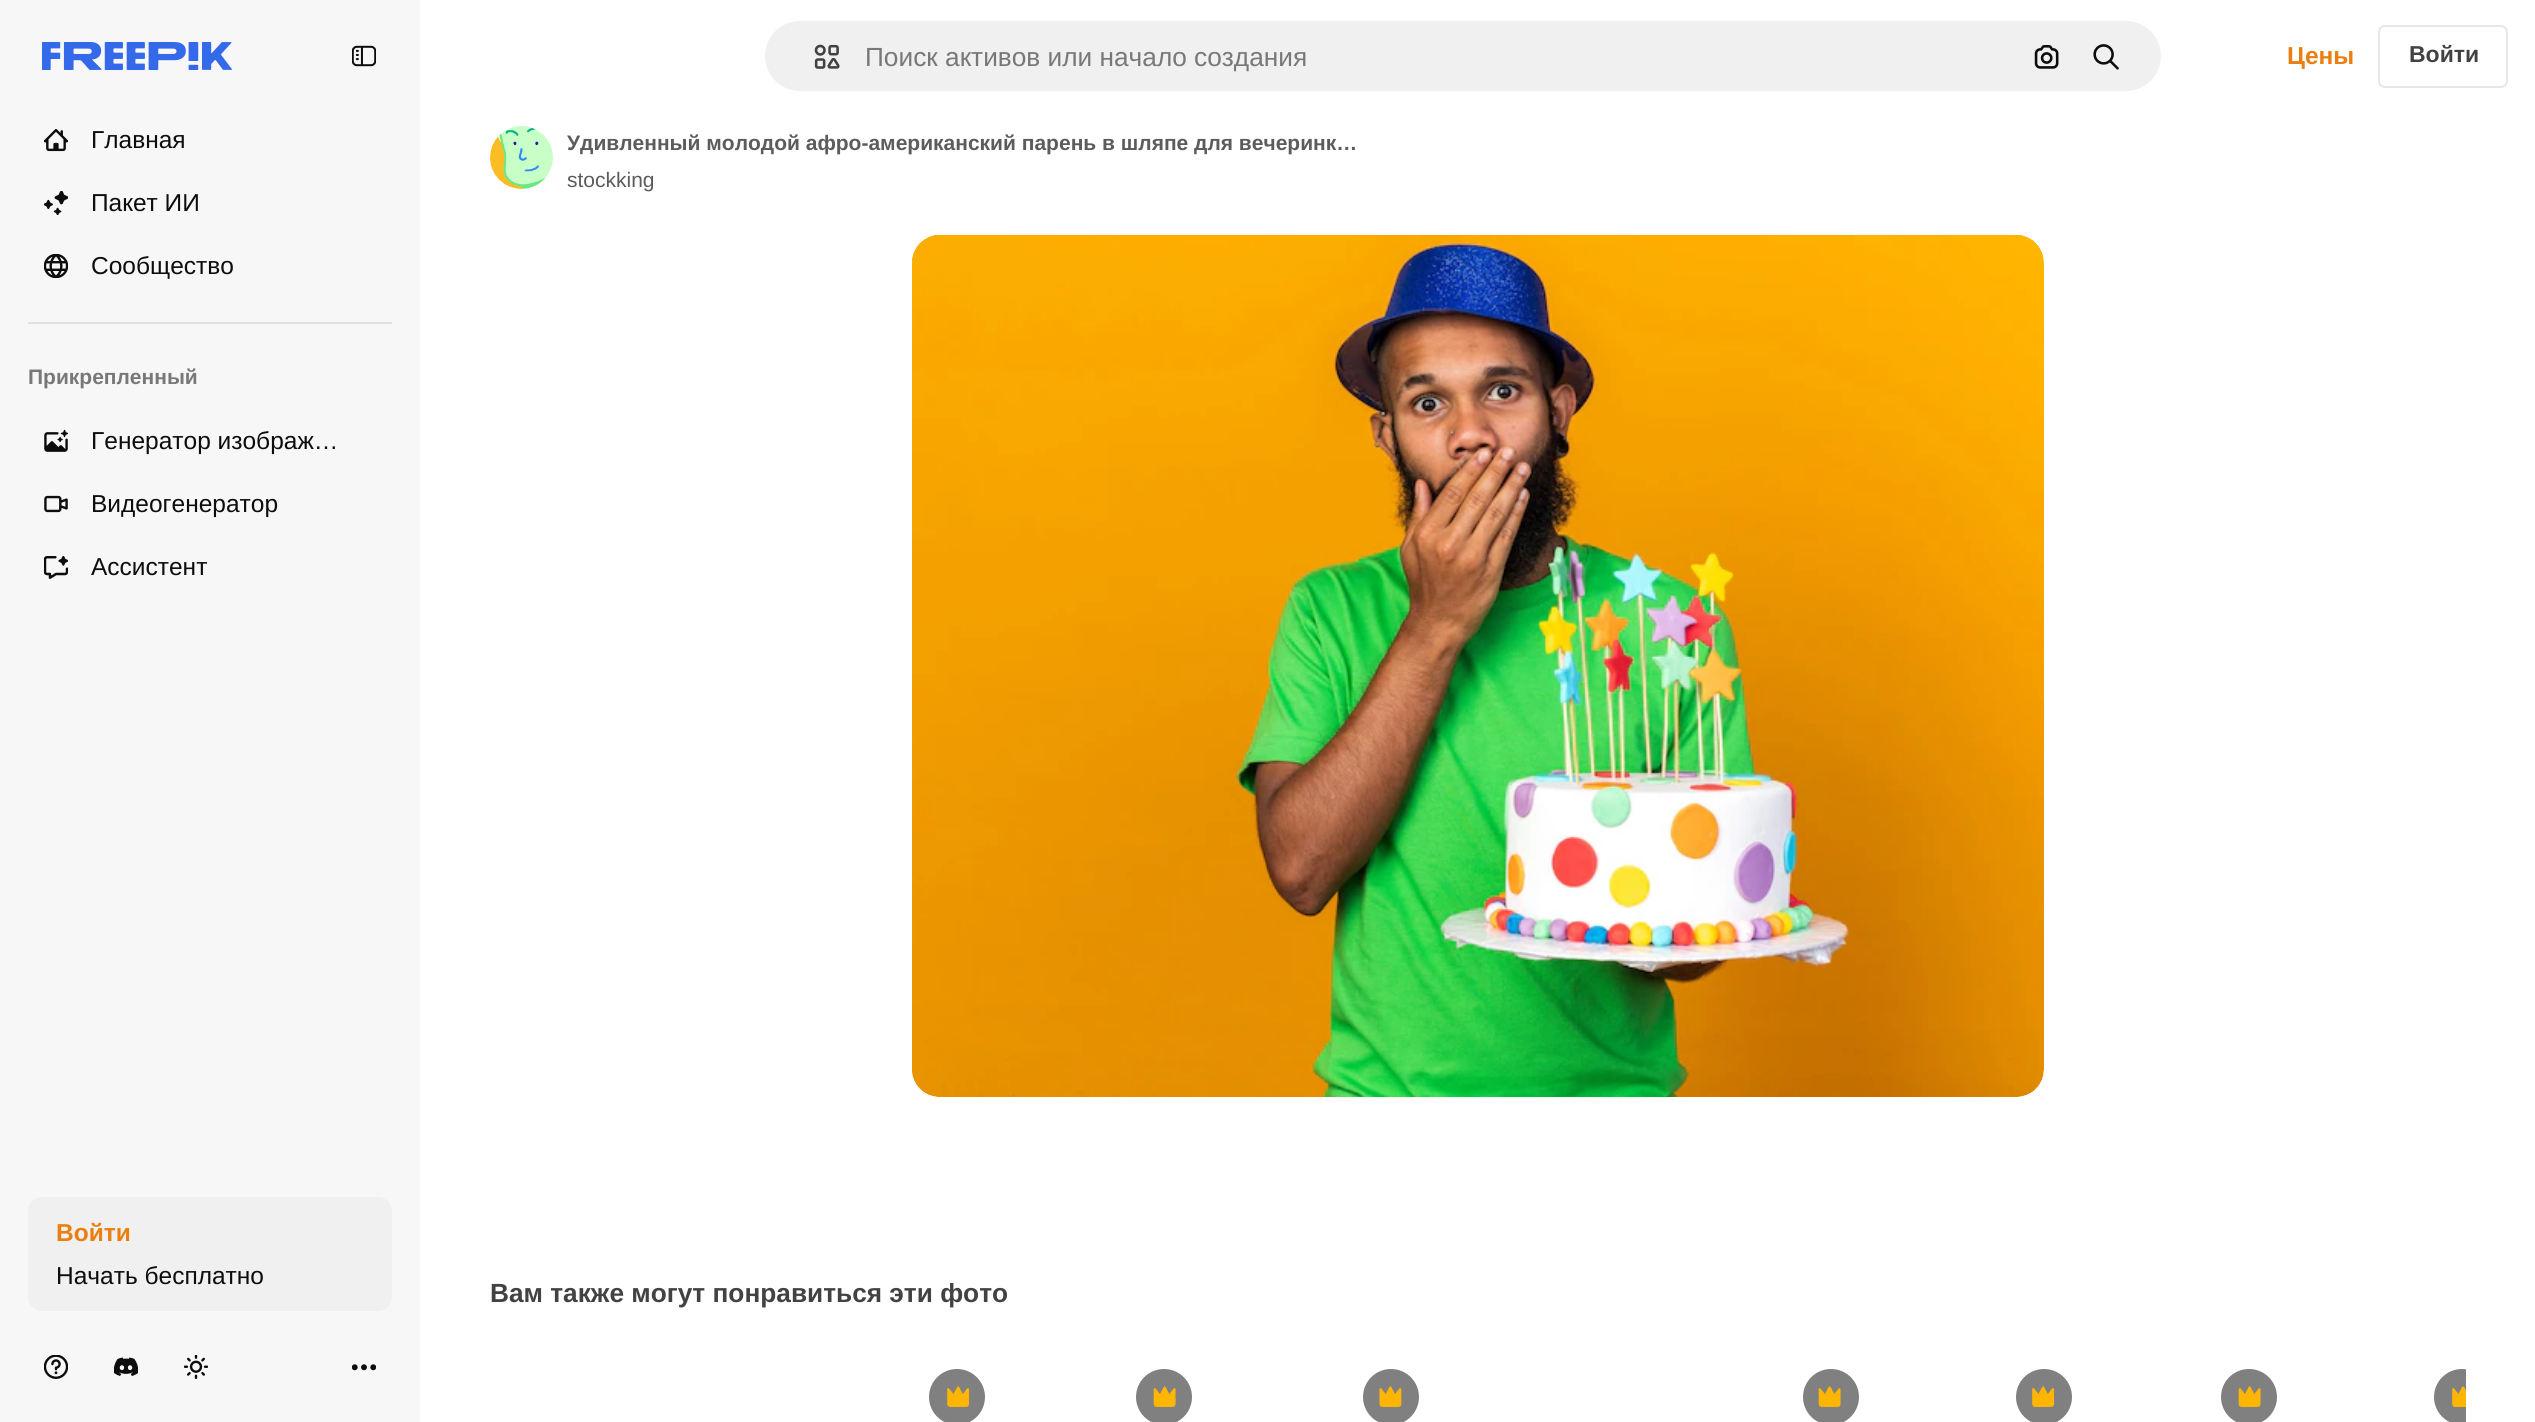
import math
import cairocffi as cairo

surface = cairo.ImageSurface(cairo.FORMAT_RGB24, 2535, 1422)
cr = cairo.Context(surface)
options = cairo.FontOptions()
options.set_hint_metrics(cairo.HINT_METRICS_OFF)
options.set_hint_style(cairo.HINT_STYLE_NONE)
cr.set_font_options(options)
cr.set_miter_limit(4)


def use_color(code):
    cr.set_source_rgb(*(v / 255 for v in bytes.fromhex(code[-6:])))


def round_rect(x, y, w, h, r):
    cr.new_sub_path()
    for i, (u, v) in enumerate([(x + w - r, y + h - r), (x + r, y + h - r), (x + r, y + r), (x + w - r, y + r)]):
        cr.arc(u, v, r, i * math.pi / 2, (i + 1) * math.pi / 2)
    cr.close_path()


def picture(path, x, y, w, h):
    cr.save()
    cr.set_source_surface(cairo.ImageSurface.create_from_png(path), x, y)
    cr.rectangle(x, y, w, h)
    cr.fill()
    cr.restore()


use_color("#ffffff")
cr.paint()
use_color("#f7f7f7")
cr.rectangle(0, 0, 420, 1422)
cr.fill()
picture("img1.png", 42, 42, 190, 28)
picture("img2.png", 352, 45, 24, 22)
picture("img3.png", 44, 129, 24, 23)
cr.select_font_face("Liberation Sans")
cr.set_font_size(24.5)
use_color("#0d0d0d")
cr.move_to(91, 148)
cr.show_text("Главная")
picture("img4.png", 44, 191, 24, 24)
cr.move_to(91, 211)
cr.show_text("Пакет ИИ")
picture("img5.png", 44, 254, 24, 24)
cr.move_to(91, 274)
cr.show_text("Сообщество")
use_color("#e0e0e0")
cr.rectangle(28, 322, 364, 2)
cr.fill()
cr.select_font_face("Liberation Sans", cairo.FONT_SLANT_NORMAL, cairo.FONT_WEIGHT_BOLD)
cr.set_font_size(21)
use_color("#787878")
cr.move_to(28, 384)
cr.show_text("Прикрепленный")
picture("img6.png", 44, 429, 24, 23)
cr.select_font_face("Liberation Sans")
cr.set_font_size(24.5)
use_color("#0d0d0d")
cr.move_to(91, 449)
cr.show_text("Генератор изображ…")
picture("img7.png", 44, 495, 24, 18)
cr.move_to(91, 512)
cr.show_text("Видеогенератор")
picture("img8.png", 44, 556, 24, 23)
cr.move_to(91, 575)
cr.show_text("Ассистент")
use_color("#f0f0f0")
round_rect(28, 1197, 364, 114, 14)
cr.fill()
cr.select_font_face("Liberation Sans", cairo.FONT_SLANT_NORMAL, cairo.FONT_WEIGHT_BOLD)
use_color("#ea7e11")
cr.move_to(56, 1241)
cr.show_text("Войти")
cr.select_font_face("Liberation Sans")
use_color("#0d0d0d")
cr.move_to(56, 1284)
cr.show_text("Начать бесплатно")
picture("img9.png", 44, 1355, 24, 24)
picture("img10.png", 114, 1357, 24, 19)
picture("img11.png", 184, 1355, 24, 24)
picture("img12.png", 352, 1364, 24, 7)
use_color("#f0f0f0")
round_rect(764, 20, 1398, 72, 36)
cr.fill_preserve()
use_color("#ffffff")
cr.stroke()
picture("img13.png", 814, 44, 26, 25)
cr.set_font_size(26.25)
use_color("#787878")
cr.move_to(865, 66)
cr.show_text("Поиск активов или начало создания")
picture("img14.png", 2034, 45, 25, 24)
picture("img15.png", 2093, 44, 26, 26)
cr.select_font_face("Liberation Sans", cairo.FONT_SLANT_NORMAL, cairo.FONT_WEIGHT_BOLD)
cr.set_font_size(24.5)
use_color("#ea7e11")
cr.move_to(2287, 64)
cr.show_text("Цены")
round_rect(2379, 26, 128, 61, 6)
use_color("#e7e7e7")
cr.stroke()
cr.set_font_size(23)
use_color("#424242")
cr.move_to(2409, 62)
cr.show_text("Войти")
picture("img16.png", 490, 126, 63, 63)
cr.set_font_size(21)
use_color("#5c5c5c")
cr.move_to(567, 150)
cr.show_text("Удивленный молодой афро-американский парень в шляпе для вечеринк…")
cr.select_font_face("Liberation Sans")
cr.move_to(567, 187)
cr.show_text("stockking")
picture("img17.png", 912, 234, 1132, 863)
cr.select_font_face("Liberation Sans", cairo.FONT_SLANT_NORMAL, cairo.FONT_WEIGHT_BOLD)
cr.set_font_size(26.25)
use_color("#424242")
cr.move_to(490, 1302)
cr.show_text("Вам также могут понравиться эти фото")
use_color("#808080")
cr.new_path()
cr.arc(957, 1397, 28, 0, 2 * math.pi)
cr.fill()
picture("img18.png", 947, 1386, 23, 21)
cr.arc(1164, 1397, 28, 0, 2 * math.pi)
cr.fill()
picture("img19.png", 1153, 1386, 23, 21)
cr.arc(1391, 1397, 28, 0, 2 * math.pi)
cr.fill()
picture("img20.png", 1379, 1386, 23, 21)
cr.arc(1831, 1397, 28, 0, 2 * math.pi)
cr.fill()
picture("img19.png", 1818, 1386, 23, 21)
cr.arc(2044, 1397, 28, 0, 2 * math.pi)
cr.fill()
picture("img18.png", 2032, 1386, 23, 21)
cr.arc(2249, 1397, 28, 0, 2 * math.pi)
cr.fill()
picture("img19.png", 2238, 1386, 23, 21)
cr.save()
cr.rectangle(490, 1341, 1976, 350)
cr.clip()
cr.arc(2462, 1397, 28, 0, 2 * math.pi)
cr.fill()
cr.restore()
picture("img21.png", 2452, 1386, 14, 21)
surface.write_to_png("result.png")
